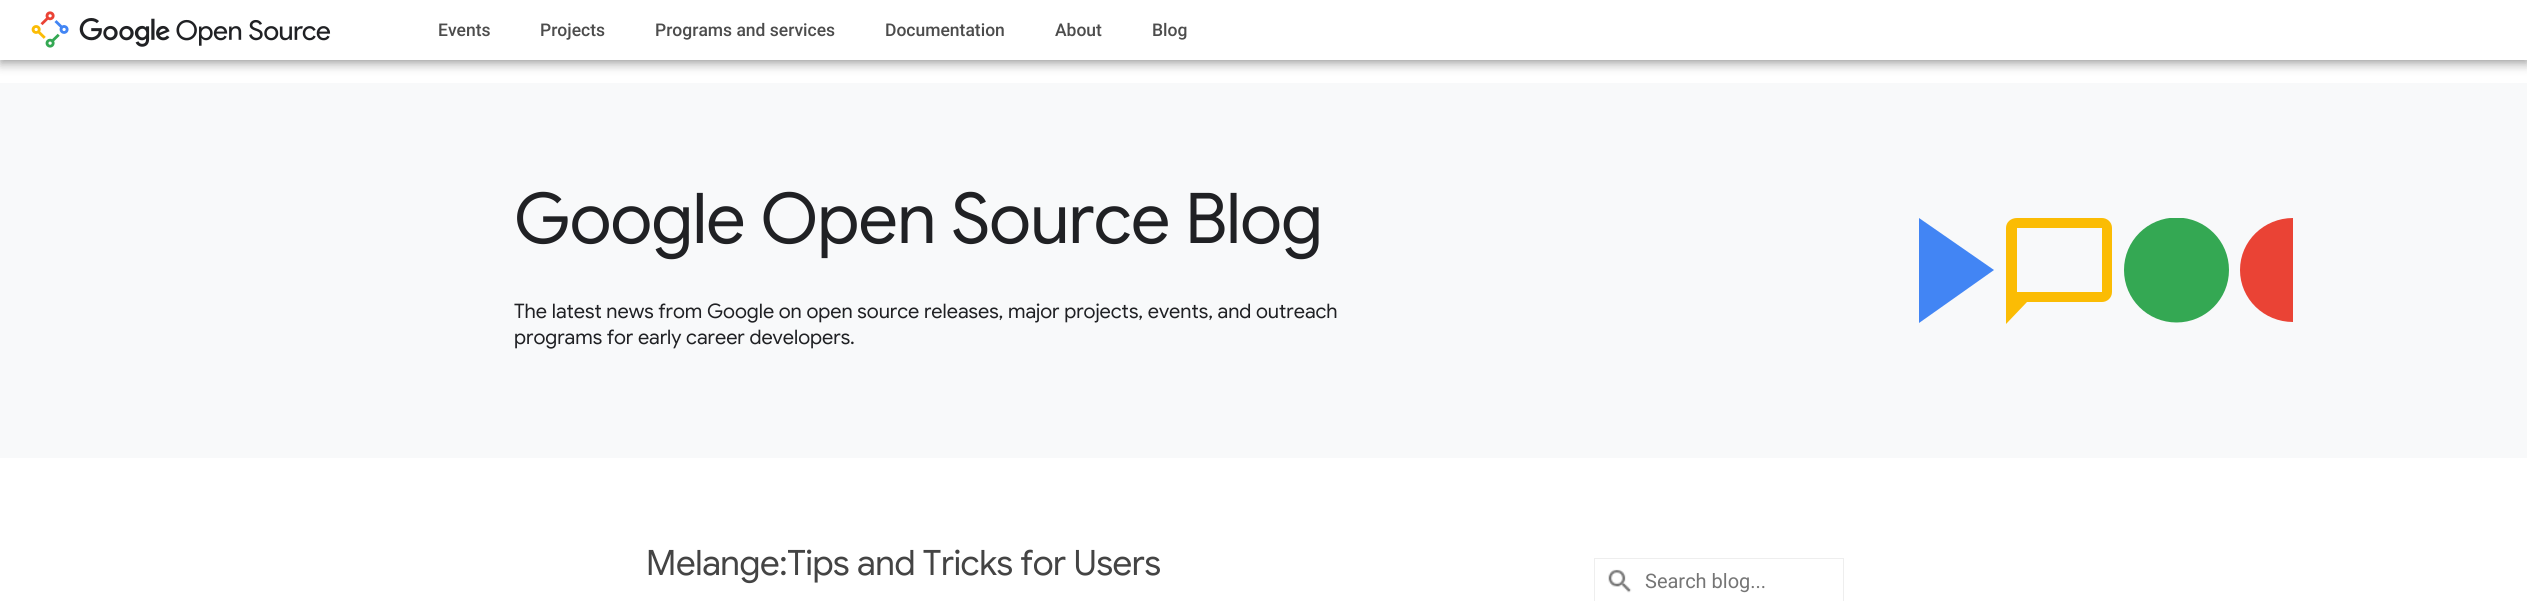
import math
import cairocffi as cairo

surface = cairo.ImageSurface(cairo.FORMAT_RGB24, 2527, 601)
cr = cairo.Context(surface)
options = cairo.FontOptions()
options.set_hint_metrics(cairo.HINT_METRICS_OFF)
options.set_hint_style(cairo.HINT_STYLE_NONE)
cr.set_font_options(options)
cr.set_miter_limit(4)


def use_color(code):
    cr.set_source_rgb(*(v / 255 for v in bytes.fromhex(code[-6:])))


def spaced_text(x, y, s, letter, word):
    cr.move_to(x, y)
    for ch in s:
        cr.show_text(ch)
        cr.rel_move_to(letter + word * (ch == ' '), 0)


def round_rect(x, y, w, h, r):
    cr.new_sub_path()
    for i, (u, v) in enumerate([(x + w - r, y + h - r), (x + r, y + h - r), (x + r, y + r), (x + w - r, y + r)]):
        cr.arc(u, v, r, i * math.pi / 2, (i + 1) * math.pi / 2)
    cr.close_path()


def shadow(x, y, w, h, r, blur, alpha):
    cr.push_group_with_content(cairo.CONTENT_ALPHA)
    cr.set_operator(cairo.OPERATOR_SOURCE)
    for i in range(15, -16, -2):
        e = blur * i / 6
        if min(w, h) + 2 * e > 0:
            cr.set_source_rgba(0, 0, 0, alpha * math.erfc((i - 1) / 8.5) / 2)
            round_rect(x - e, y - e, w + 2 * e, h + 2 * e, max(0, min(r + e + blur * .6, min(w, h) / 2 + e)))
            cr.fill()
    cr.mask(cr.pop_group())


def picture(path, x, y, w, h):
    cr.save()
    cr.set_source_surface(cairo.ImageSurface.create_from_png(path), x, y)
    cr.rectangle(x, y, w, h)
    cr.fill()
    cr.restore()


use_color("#ffffff")
cr.paint()
use_color("#000000")
shadow(0, 5, 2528, 60, 0, 5, 0.28)
shadow(0, 0, 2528, 60, 0, 2.5, 0.14)
use_color("#ffffff")
cr.rectangle(0, 0, 2527, 60)
cr.fill()
picture("img1.png", 31, 11, 300, 37)
cr.select_font_face("Roboto Medium")
cr.set_font_size(17.5)
use_color("#4c4c4c")
cr.move_to(438, 36)
cr.show_text("Events")
cr.move_to(540, 36)
cr.show_text("Projects")
cr.move_to(655, 36)
cr.show_text("Programs and services")
cr.move_to(885, 36)
cr.show_text("Documentation")
cr.move_to(1055, 36)
cr.show_text("About")
cr.move_to(1152, 36)
cr.show_text("Blog")
use_color("#f8f9fa")
cr.rectangle(0, 83, 2527, 375)
cr.fill()
cr.select_font_face("Google Sans")
cr.set_font_size(70)
use_color("#202124")
spaced_text(514, 243, "Google Open Source Blog", -0.7, 0)
cr.set_font_size(20)
cr.move_to(514, 318)
cr.show_text("The latest news from Google on open source releases, major projects, events, and outreach")
cr.move_to(514, 344)
cr.show_text("programs for early career developers.")
use_color("#4285f4")
cr.new_path()
cr.move_to(1994, 270)
cr.line_to(1919, 323)
cr.line_to(1919, 218)
cr.close_path()
cr.fill()
use_color("#fbbc04")
cr.set_fill_rule(cairo.FILL_RULE_EVEN_ODD)
cr.new_path()
cr.move_to(2102, 218)
cr.line_to(2017, 218)
cr.curve_to(2011, 218, 2006, 222, 2006, 228)
cr.line_to(2006, 324)
cr.line_to(2027, 302)
cr.line_to(2102, 302)
cr.curve_to(2107, 302, 2112, 298, 2112, 292)
cr.line_to(2112, 228)
cr.curve_to(2112, 222, 2107, 218, 2102, 218)
cr.close_path()
cr.move_to(2102, 292)
cr.line_to(2017, 292)
cr.line_to(2017, 228)
cr.line_to(2102, 228)
cr.close_path()
cr.fill()
cr.save()
cr.set_fill_rule(cairo.FILL_RULE_WINDING)
cr.rectangle(1746, 218, 719, 106)
cr.clip()
use_color("#34a853")
cr.arc(2176.5, 270, 52.5, 0, 2 * math.pi)
cr.fill()
cr.restore()
use_color("#ea4335")
cr.set_fill_rule(cairo.FILL_RULE_WINDING)
cr.new_path()
cr.move_to(2293, 218)
cr.curve_to(2264, 218, 2240, 241, 2240, 270)
cr.curve_to(2240, 299, 2264, 322, 2293, 322)
cr.close_path()
cr.fill()
cr.set_font_size(35)
use_color("#444444")
spaced_text(646, 575, "Melange:Tips and Tricks for Users", -0.35, 0)
picture("img2.png", 1608, 569, 24, 24)
cr.rectangle(1594.5, 558.5, 249, 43)
use_color("#eeeeee")
cr.set_line_width(1)
cr.stroke()
cr.select_font_face("Roboto")
cr.set_font_size(20)
use_color("#757575")
cr.move_to(1645, 588)
cr.show_text("Search blog...")
surface.write_to_png("result.png")
